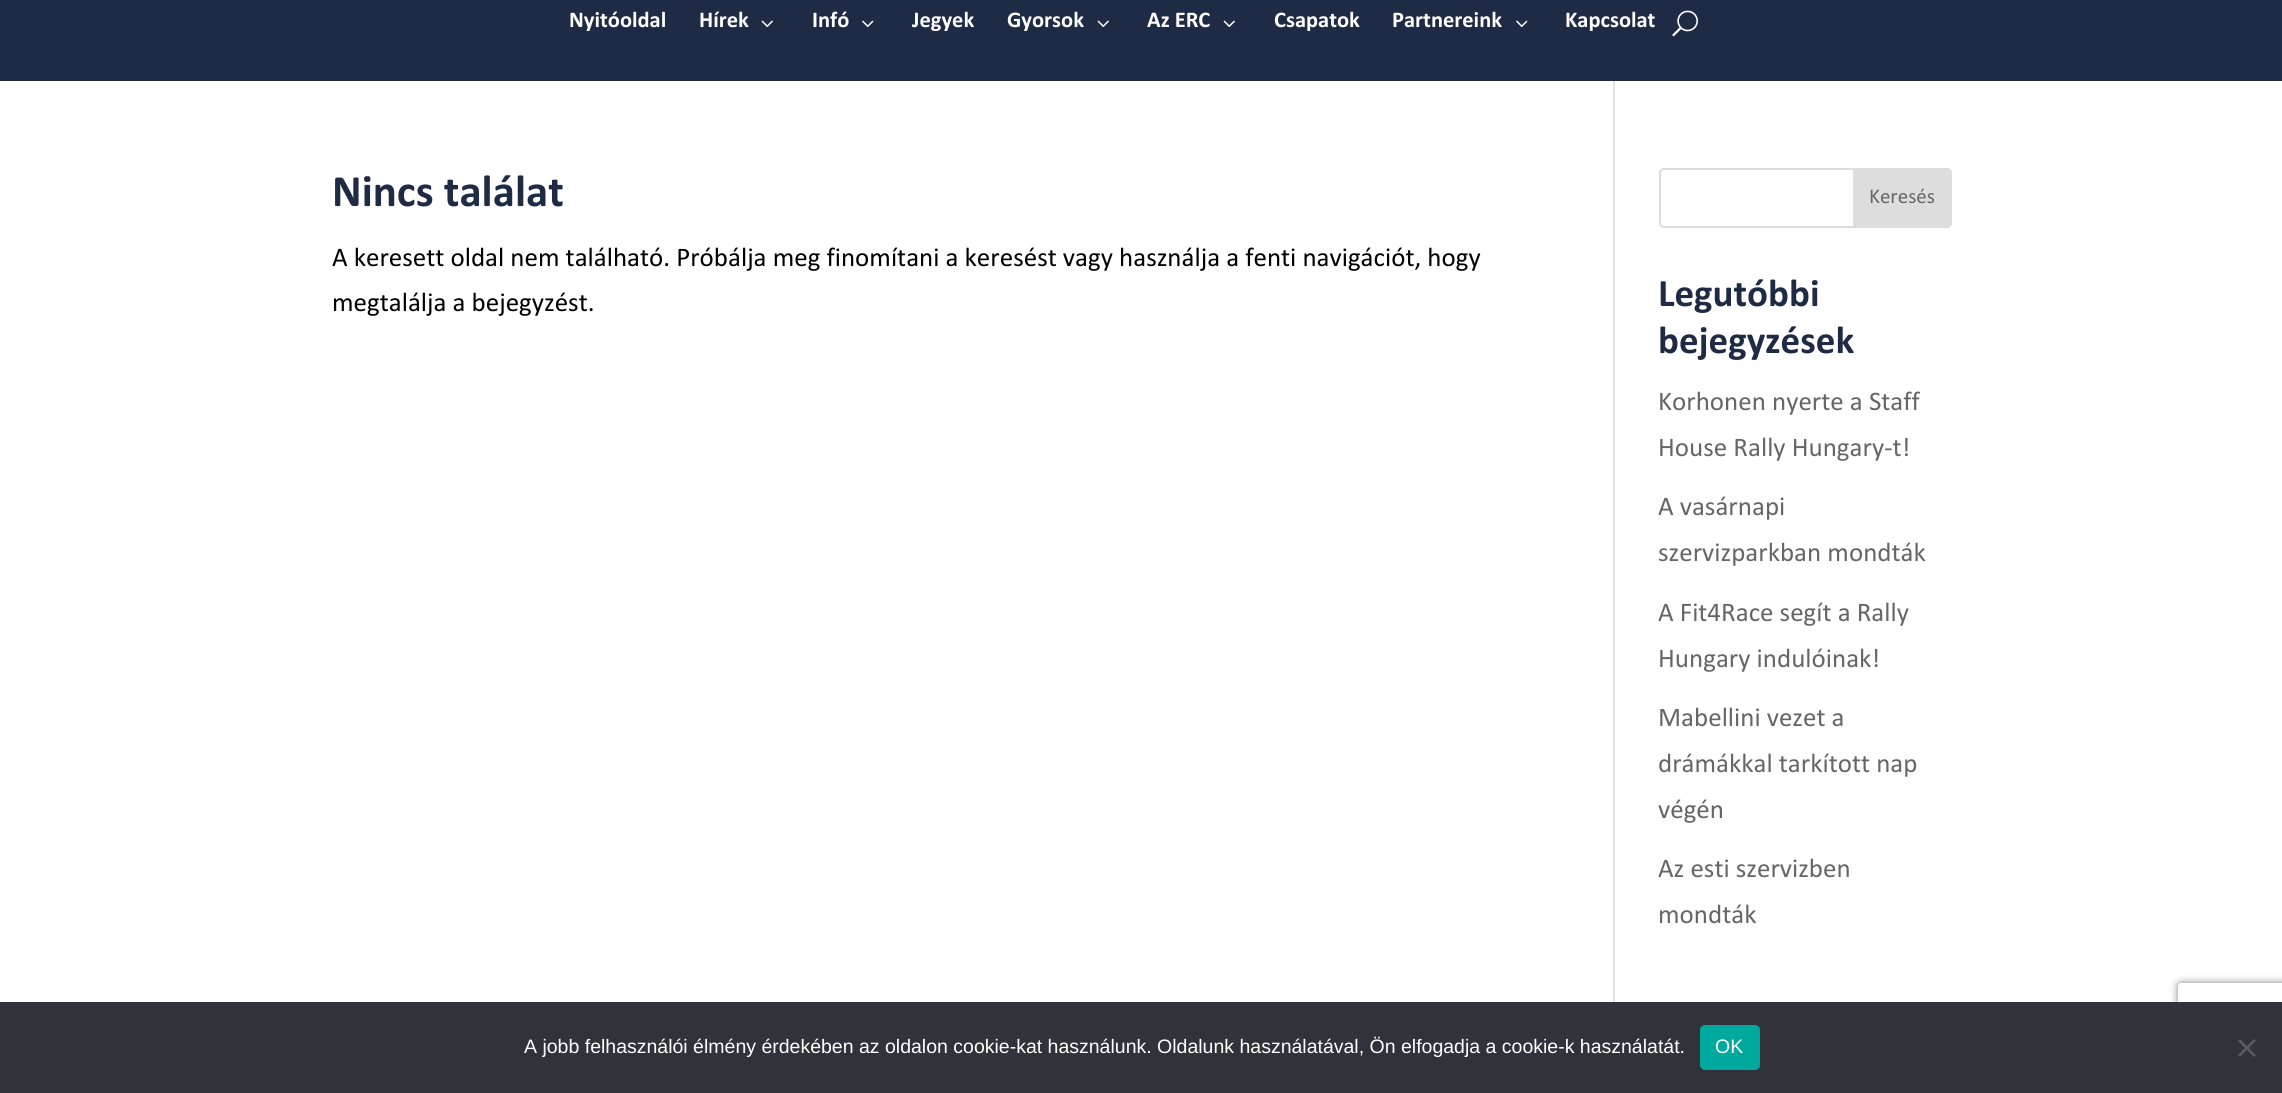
import math
import cairocffi as cairo

surface = cairo.ImageSurface(cairo.FORMAT_RGB24, 2282, 1093)
cr = cairo.Context(surface)
options = cairo.FontOptions()
options.set_hint_metrics(cairo.HINT_METRICS_OFF)
options.set_hint_style(cairo.HINT_STYLE_NONE)
cr.set_font_options(options)
cr.set_miter_limit(4)


def use_color(code):
    cr.set_source_rgb(*(v / 255 for v in bytes.fromhex(code[-6:])))


def round_rect(x, y, w, h, r):
    cr.new_sub_path()
    for i, (u, v) in enumerate([(x + w - r, y + h - r), (x + r, y + h - r), (x + r, y + r), (x + w - r, y + r)]):
        cr.arc(u, v, r, i * math.pi / 2, (i + 1) * math.pi / 2)
    cr.close_path()


def shadow(x, y, w, h, r, blur, alpha):
    cr.push_group_with_content(cairo.CONTENT_ALPHA)
    cr.set_operator(cairo.OPERATOR_SOURCE)
    for i in range(15, -16, -2):
        e = blur * i / 6
        if min(w, h) + 2 * e > 0:
            cr.set_source_rgba(0, 0, 0, alpha * math.erfc((i - 1) / 8.5) / 2)
            round_rect(x - e, y - e, w + 2 * e, h + 2 * e, max(0, min(r + e + blur * .6, min(w, h) / 2 + e)))
            cr.fill()
    cr.mask(cr.pop_group())


def picture(path, x, y, w, h):
    cr.save()
    cr.set_source_surface(cairo.ImageSurface.create_from_png(path), x, y)
    cr.rectangle(x, y, w, h)
    cr.fill()
    cr.restore()


use_color("#ffffff")
cr.paint()
use_color("#1f2a44")
cr.rectangle(0, 0, 2282, 81)
cr.fill()
cr.select_font_face("Calibri", cairo.FONT_SLANT_NORMAL, cairo.FONT_WEIGHT_BOLD)
cr.set_font_size(22.5)
use_color("#ffffff")
cr.move_to(569, 27)
cr.show_text("Nyitóoldal")
cr.move_to(699, 27)
cr.show_text("Hírek")
picture("img1.png", 761, 20, 12, 7)
cr.move_to(812, 27)
cr.show_text("Infó")
picture("img2.png", 862, 20, 12, 7)
cr.move_to(912, 27)
cr.show_text("Jegyek")
cr.move_to(1007, 27)
cr.show_text("Gyorsok")
picture("img1.png", 1097, 20, 12, 7)
cr.move_to(1147, 27)
cr.show_text("Az ERC")
picture("img1.png", 1223, 20, 12, 7)
cr.move_to(1274, 27)
cr.show_text("Csapatok")
cr.move_to(1392, 27)
cr.show_text("Partnereink")
picture("img2.png", 1516, 20, 12, 7)
cr.move_to(1565, 27)
cr.show_text("Kapcsolat")
picture("img3.png", 1672, 10, 26, 27)
use_color("#e2e2e2")
cr.rectangle(1613, 81, 2, 921)
cr.fill()
cr.set_font_size(45)
use_color("#1f2a44")
cr.move_to(332, 206)
cr.show_text("Nincs találat")
cr.select_font_face("Calibri")
cr.set_font_size(27)
use_color("#000000")
cr.move_to(332, 266)
cr.show_text("A keresett oldal nem található. Próbálja meg finomítani a keresést vagy használja a fenti navigációt, hogy")
cr.move_to(332, 311)
cr.show_text("megtalálja a bejegyzést.")
round_rect(1660, 169, 291, 58, 4)
use_color("#dddddd")
cr.stroke()
cr.new_path()
cr.move_to(1854, 169)
cr.line_to(1947, 169)
cr.curve_to(1949, 169, 1951, 171, 1951, 173)
cr.line_to(1951, 223)
cr.curve_to(1951, 225, 1949, 227, 1947, 227)
cr.line_to(1854, 227)
cr.close_path()
cr.fill_preserve()
cr.stroke()
cr.set_font_size(21)
use_color("#666666")
cr.move_to(1869, 203)
cr.show_text("Keresés")
cr.select_font_face("Calibri", cairo.FONT_SLANT_NORMAL, cairo.FONT_WEIGHT_BOLD)
cr.set_font_size(39)
use_color("#1f2a44")
cr.move_to(1658, 306)
cr.show_text("Legutóbbi")
cr.move_to(1658, 353)
cr.show_text("bejegyzések")
cr.select_font_face("Calibri")
cr.set_font_size(27)
use_color("#666666")
cr.move_to(1658, 410)
cr.show_text("Korhonen nyerte a Staff")
cr.move_to(1658, 456)
cr.show_text("House Rally Hungary-t!")
cr.move_to(1658, 515)
cr.show_text("A vasárnapi")
cr.move_to(1658, 561)
cr.show_text("szervizparkban mondták")
cr.move_to(1658, 621)
cr.show_text("A Fit4Race segít a Rally")
cr.move_to(1658, 667)
cr.show_text("Hungary indulóinak!")
cr.move_to(1658, 726)
cr.show_text("Mabellini vezet a")
cr.move_to(1658, 772)
cr.show_text("drámákkal tarkított nap")
cr.move_to(1658, 818)
cr.show_text("végén")
cr.move_to(1658, 877)
cr.show_text("Az esti szervizben")
cr.move_to(1658, 923)
cr.show_text("mondták")
cr.save()
cr.set_fill_rule(cairo.FILL_RULE_EVEN_ODD)
cr.new_path()
cr.move_to(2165, 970)
cr.line_to(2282, 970)
cr.line_to(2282, 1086)
cr.line_to(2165, 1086)
cr.close_path()
cr.move_to(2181, 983)
cr.line_to(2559, 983)
cr.curve_to(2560.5, 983, 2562, 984.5, 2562, 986)
cr.line_to(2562, 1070)
cr.curve_to(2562, 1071.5, 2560.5, 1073, 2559, 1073)
cr.line_to(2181, 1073)
cr.curve_to(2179.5, 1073, 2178, 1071.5, 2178, 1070)
cr.line_to(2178, 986)
cr.curve_to(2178, 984.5, 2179.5, 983, 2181, 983)
cr.close_path()
cr.clip()
use_color("#808080")
shadow(2178, 983, 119, 90, 3, 4, 1)
cr.restore()
use_color("#32323a")
cr.rectangle(0, 1002, 2282, 91)
cr.fill()
cr.select_font_face("Liberation Sans")
cr.set_font_size(19.5)
use_color("#ffffff")
cr.move_to(524, 1053)
cr.show_text("A jobb felhasználói élmény érdekében az oldalon cookie-kat használunk. Oldalunk használatával, Ön elfogadja a cookie-k használatát.")
use_color("#00a99d")
round_rect(1700, 1025, 60, 45, 5)
cr.fill()
use_color("#ffffff")
cr.move_to(1715, 1053)
cr.show_text("OK")
use_color("#59595d")
cr.new_path()
cr.move_to(2254, 1039)
cr.line_to(2256, 1041)
cr.line_to(2240, 1057)
cr.line_to(2238, 1055)
cr.close_path()
cr.fill()
cr.new_path()
cr.move_to(2238, 1041)
cr.line_to(2240, 1039)
cr.line_to(2256, 1055)
cr.line_to(2254, 1057)
cr.close_path()
cr.fill()
surface.write_to_png("result.png")
